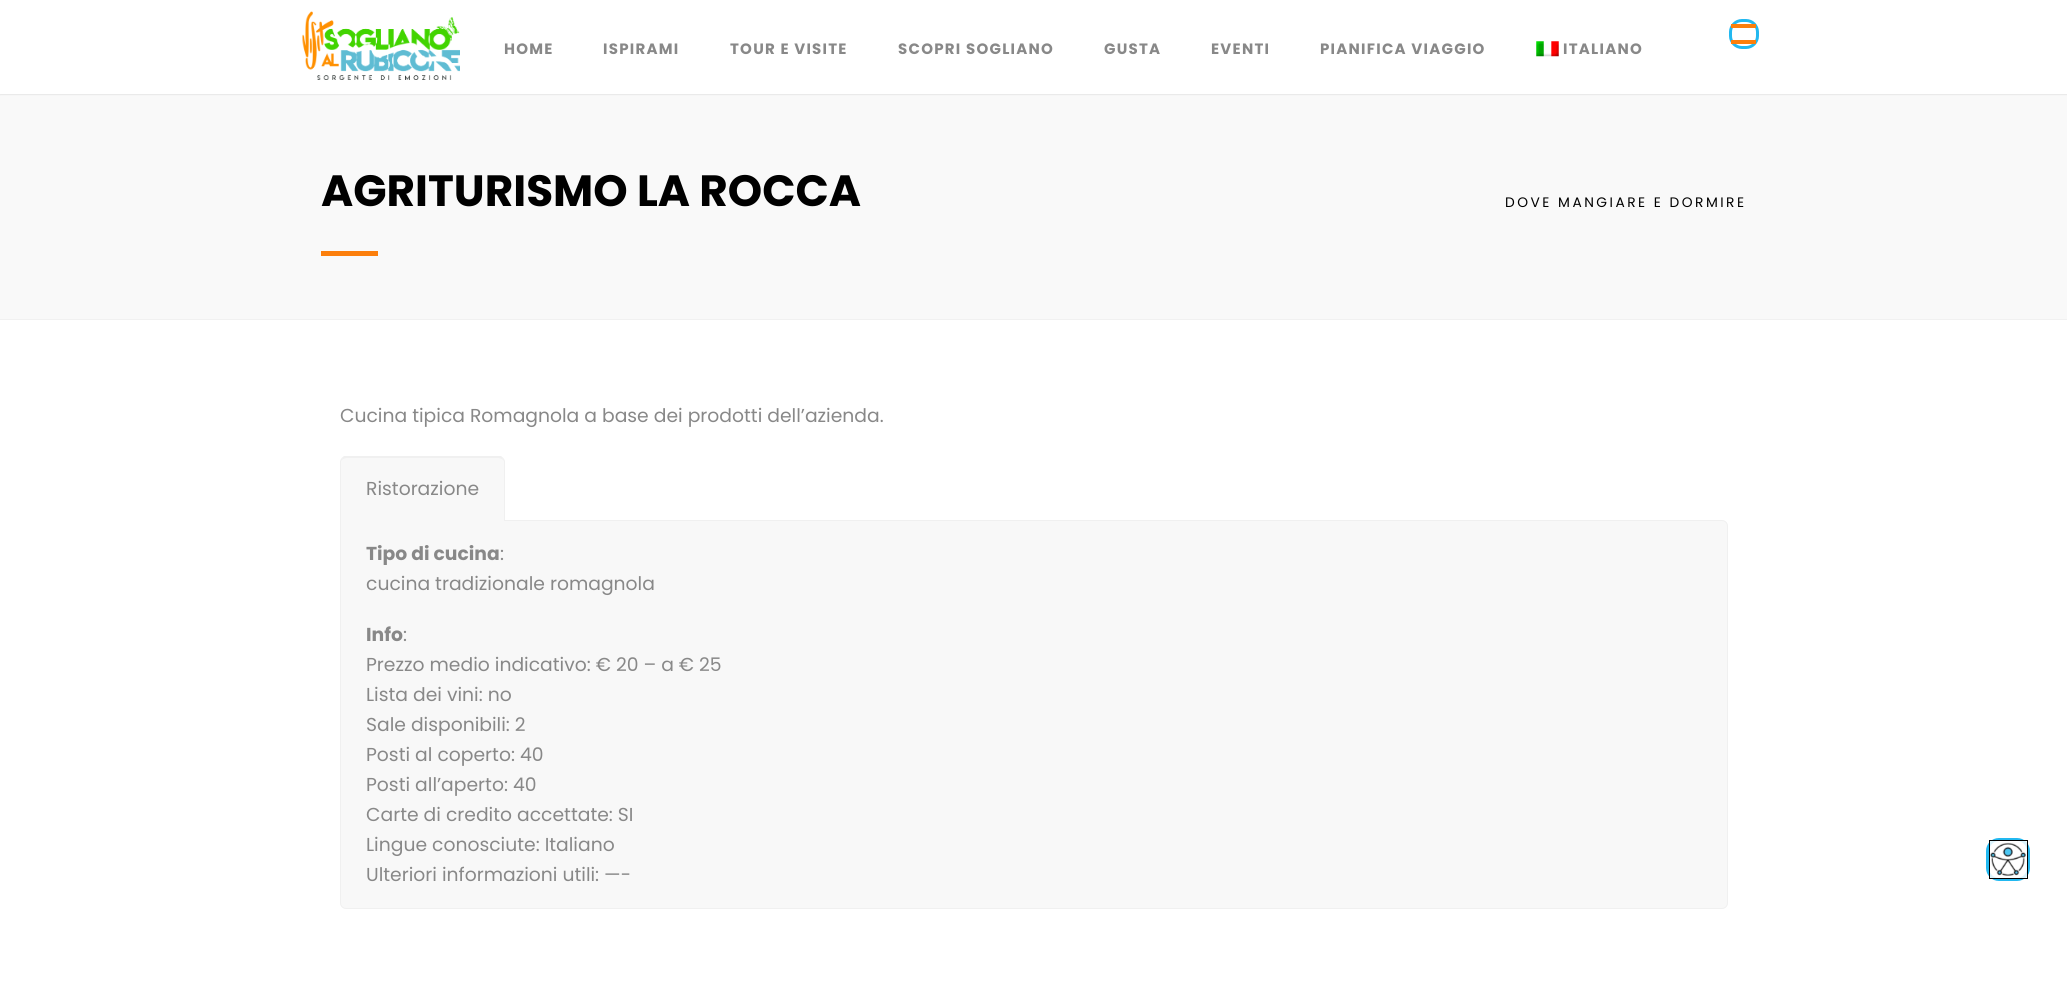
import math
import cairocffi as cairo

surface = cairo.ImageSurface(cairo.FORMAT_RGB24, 2067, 1006)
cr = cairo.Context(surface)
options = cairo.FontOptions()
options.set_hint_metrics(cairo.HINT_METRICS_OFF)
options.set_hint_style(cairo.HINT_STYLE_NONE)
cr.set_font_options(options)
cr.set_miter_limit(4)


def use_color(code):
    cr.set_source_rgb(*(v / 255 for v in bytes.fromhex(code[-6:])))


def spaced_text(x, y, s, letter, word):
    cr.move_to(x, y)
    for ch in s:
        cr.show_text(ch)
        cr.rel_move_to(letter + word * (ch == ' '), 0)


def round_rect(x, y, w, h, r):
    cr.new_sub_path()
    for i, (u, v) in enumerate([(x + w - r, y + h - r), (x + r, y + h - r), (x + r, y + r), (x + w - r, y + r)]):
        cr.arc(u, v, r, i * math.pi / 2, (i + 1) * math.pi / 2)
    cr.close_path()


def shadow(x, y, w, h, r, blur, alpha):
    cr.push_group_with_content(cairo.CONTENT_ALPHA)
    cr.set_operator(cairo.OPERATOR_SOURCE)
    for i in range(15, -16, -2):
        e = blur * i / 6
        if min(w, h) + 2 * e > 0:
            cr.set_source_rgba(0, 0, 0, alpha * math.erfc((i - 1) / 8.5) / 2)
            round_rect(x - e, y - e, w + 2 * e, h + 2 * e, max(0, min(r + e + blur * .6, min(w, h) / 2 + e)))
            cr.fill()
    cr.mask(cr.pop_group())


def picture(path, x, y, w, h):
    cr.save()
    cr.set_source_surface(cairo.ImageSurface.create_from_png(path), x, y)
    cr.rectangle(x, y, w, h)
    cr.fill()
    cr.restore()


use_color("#ffffff")
cr.paint()
use_color("#f9f9f9")
cr.rectangle(0, 94, 2067, 225)
cr.fill()
use_color("#cecece")
shadow(0, 0, 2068, 94, 0, 1, 1)
use_color("#ffffff")
cr.rectangle(0, 0, 2067, 94)
cr.fill()
picture("img1.png", 302, 11, 158, 69)
round_rect(1730.5, 20.5, 27, 27, 11.5)
use_color("#22b8f0")
cr.set_line_width(3)
cr.stroke()
use_color("#fc7f0c")
cr.rectangle(1731, 24, 25, 4)
cr.fill()
cr.rectangle(1731, 40, 25, 4)
cr.fill()
cr.select_font_face("Poppins", cairo.FONT_SLANT_NORMAL, cairo.FONT_WEIGHT_BOLD)
cr.set_font_size(15)
use_color("#888888")
spaced_text(504, 54, "HOME", 1.25, 0)
spaced_text(603, 54, "ISPIRAMI", 1.25, 0)
spaced_text(730, 54, "TOUR E VISITE", 1.25, 0)
spaced_text(898, 54, "SCOPRI SOGLIANO", 1.25, 0)
spaced_text(1104, 54, "GUSTA", 1.25, 0)
spaced_text(1211, 54, "EVENTI", 1.25, 0)
spaced_text(1320, 54, "PIANIFICA VIAGGIO", 1.25, 0)
picture("img2.png", 1536, 41, 23, 16)
spaced_text(1563, 54, "ITALIANO", 1.25, 0)
use_color("#f1f1f1")
cr.rectangle(0, 319, 2067, 1)
cr.fill()
cr.set_font_size(43.75)
use_color("#000000")
cr.move_to(321, 206)
cr.show_text("AGRITURISMO LA ROCCA")
use_color("#fc7f0c")
cr.rectangle(321, 251, 57, 5)
cr.fill()
cr.select_font_face("Poppins")
cr.set_font_size(13.75)
use_color("#000000")
spaced_text(1505, 207, "DOVE MANGIARE E DORMIRE", 2.5, 0)
cr.set_font_size(18.75)
use_color("#888888")
cr.move_to(340, 422)
cr.show_text("Cucina tipica Romagnola a base dei prodotti dell’azienda.")
use_color("#f8f8f8")
cr.new_path()
cr.move_to(340.5, 520.5)
cr.line_to(1722, 520.5)
cr.curve_to(1725, 520.5, 1727.5, 523, 1727.5, 526)
cr.line_to(1727.5, 903)
cr.curve_to(1727.5, 906, 1725, 908.5, 1722, 908.5)
cr.line_to(346, 908.5)
cr.curve_to(343, 908.5, 340.5, 906, 340.5, 903)
cr.close_path()
cr.fill_preserve()
use_color("#f0f0f0")
cr.set_line_width(1)
cr.stroke()
use_color("#f8f8f8")
cr.new_path()
cr.move_to(346, 456)
cr.line_to(499, 456)
cr.curve_to(502.5, 456, 505, 458.5, 505, 462)
cr.line_to(505, 521)
cr.line_to(340, 521)
cr.line_to(340, 462)
cr.curve_to(340, 458.5, 342.5, 456, 346, 456)
cr.close_path()
cr.fill()
use_color("#f0f0f0")
cr.new_path()
cr.move_to(346, 458)
cr.line_to(343, 459)
cr.line_to(342, 458)
cr.line_to(344, 456)
cr.line_to(501, 456)
cr.line_to(503, 458)
cr.line_to(502, 459)
cr.line_to(499, 458)
cr.close_path()
cr.fill()
cr.new_path()
cr.move_to(505, 521)
cr.line_to(505, 462)
cr.curve_to(505, 461, 504, 459, 503, 458)
cr.line_to(502, 459)
cr.line_to(504, 461)
cr.line_to(504, 520)
cr.close_path()
cr.fill()
cr.new_path()
cr.move_to(340, 462)
cr.line_to(340, 521)
cr.line_to(341, 520)
cr.line_to(341, 461)
cr.line_to(343, 459)
cr.line_to(342, 458)
cr.curve_to(341, 459, 340, 461, 340, 462)
cr.close_path()
cr.fill()
use_color("#888888")
cr.move_to(366, 495)
cr.show_text("Ristorazione")
use_color("#f0f0f0")
cr.rectangle(340, 520, 1, 1)
cr.fill()
cr.rectangle(504, 520, 1, 1)
cr.fill()
cr.select_font_face("Poppins", cairo.FONT_SLANT_NORMAL, cairo.FONT_WEIGHT_BOLD)
use_color("#888888")
cr.move_to(366, 560)
cr.show_text("Tipo di cucina")
cr.select_font_face("Poppins")
cr.move_to(500, 560)
cr.show_text(":")
cr.move_to(366, 590)
cr.show_text("cucina tradizionale romagnola")
cr.select_font_face("Poppins", cairo.FONT_SLANT_NORMAL, cairo.FONT_WEIGHT_BOLD)
cr.move_to(366, 641)
cr.show_text("Info")
cr.select_font_face("Poppins")
cr.move_to(403, 641)
cr.show_text(":")
cr.move_to(366, 671)
cr.show_text("Prezzo medio indicativo: € 20 – a € 25")
cr.move_to(366, 701)
cr.show_text("Lista dei vini: no")
cr.move_to(366, 731)
cr.show_text("Sale disponibili: 2")
cr.move_to(366, 761)
cr.show_text("Posti al coperto: 40")
cr.move_to(366, 791)
cr.show_text("Posti all’aperto: 40")
cr.move_to(366, 821)
cr.show_text("Carte di credito accettate: SI")
cr.move_to(366, 851)
cr.show_text("Lingue conosciute: Italiano")
cr.move_to(366, 881)
cr.show_text("Ulteriori informazioni utili: —-")
round_rect(1987.5, 839.5, 41, 40, 11.5)
use_color("#22b8f0")
cr.set_line_width(3)
cr.stroke()
cr.set_source_rgba(1, 1, 1, 0.83)
cr.rectangle(1989.5, 840.5, 38, 38)
cr.fill_preserve()
use_color("#000000")
cr.set_line_width(1)
cr.stroke()
picture("img3.png", 1989, 842, 37, 34)
surface.write_to_png("result.png")
